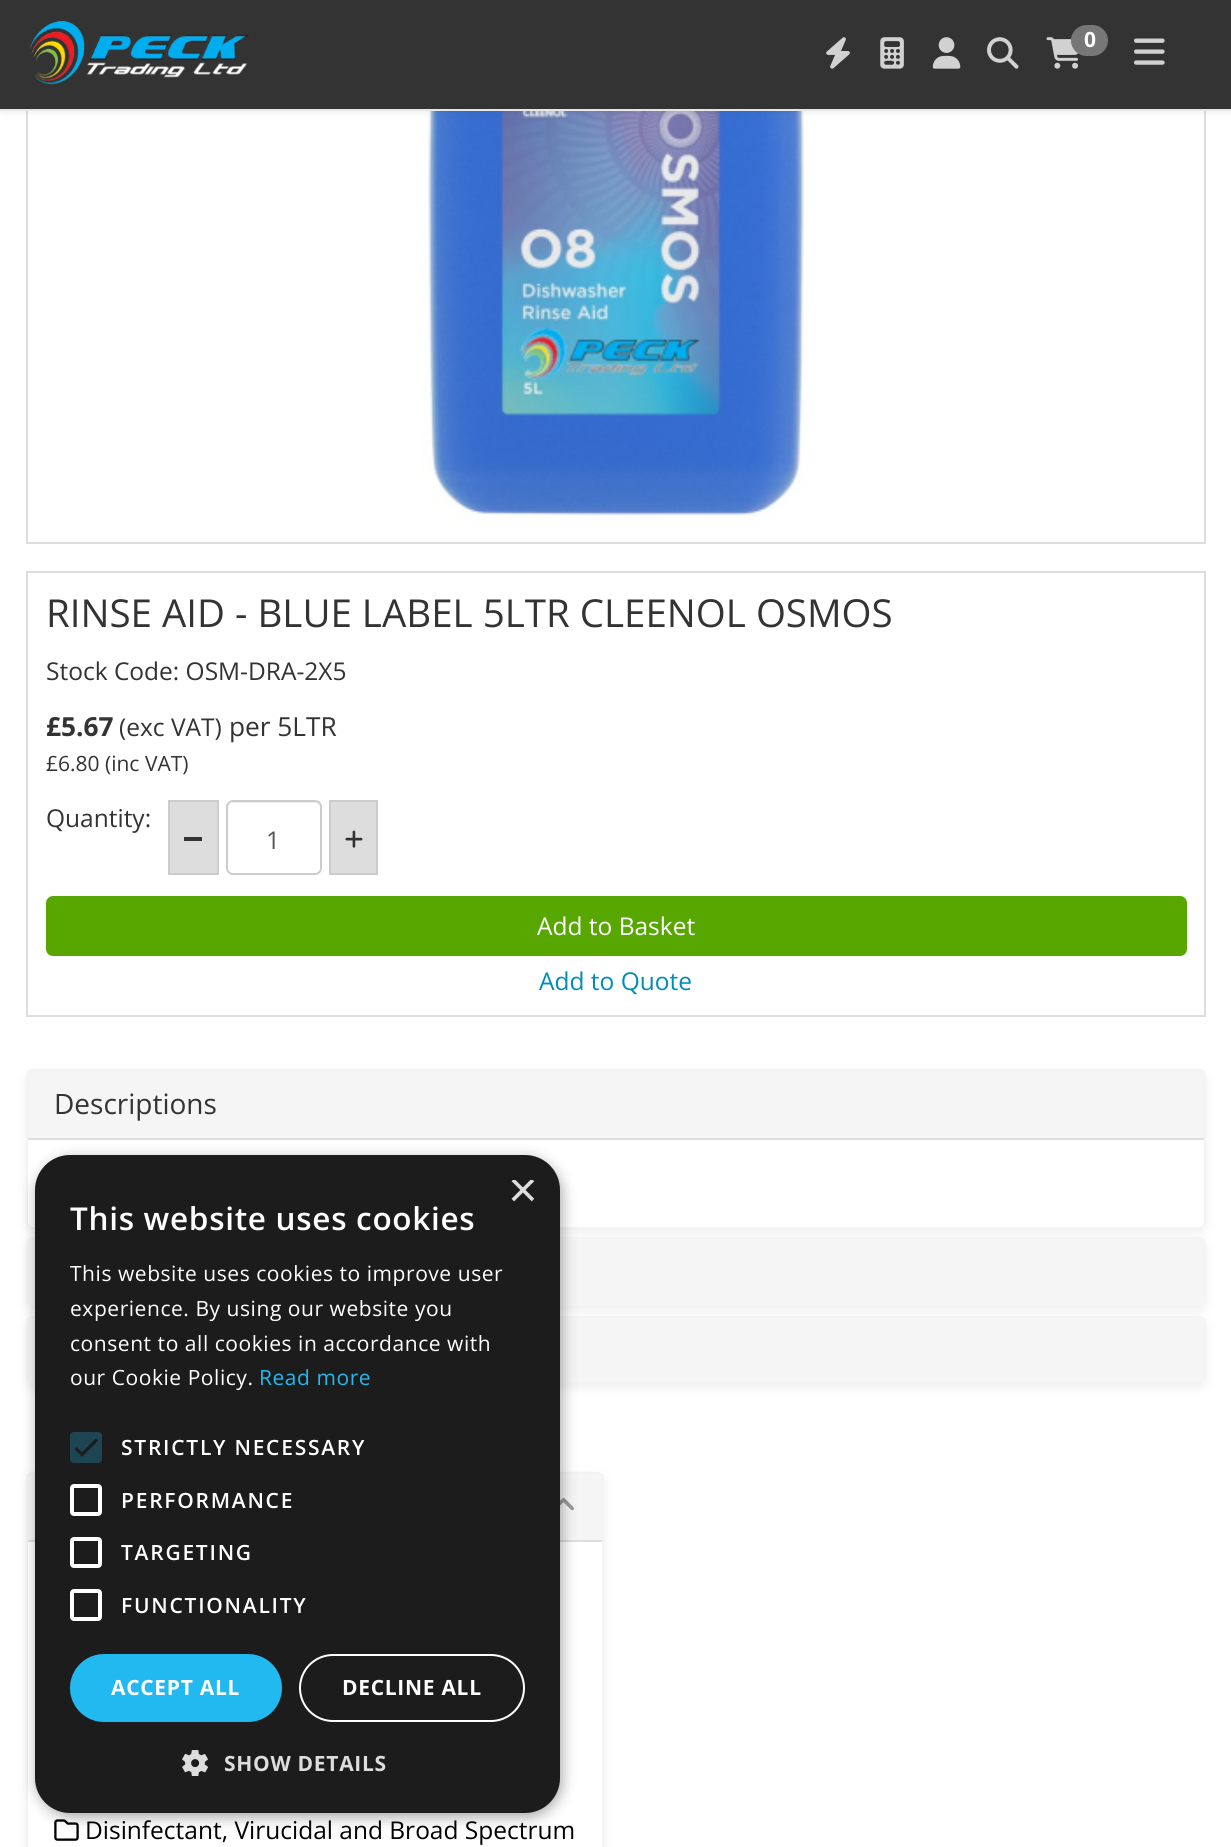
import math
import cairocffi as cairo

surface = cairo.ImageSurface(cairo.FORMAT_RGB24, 1231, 1847)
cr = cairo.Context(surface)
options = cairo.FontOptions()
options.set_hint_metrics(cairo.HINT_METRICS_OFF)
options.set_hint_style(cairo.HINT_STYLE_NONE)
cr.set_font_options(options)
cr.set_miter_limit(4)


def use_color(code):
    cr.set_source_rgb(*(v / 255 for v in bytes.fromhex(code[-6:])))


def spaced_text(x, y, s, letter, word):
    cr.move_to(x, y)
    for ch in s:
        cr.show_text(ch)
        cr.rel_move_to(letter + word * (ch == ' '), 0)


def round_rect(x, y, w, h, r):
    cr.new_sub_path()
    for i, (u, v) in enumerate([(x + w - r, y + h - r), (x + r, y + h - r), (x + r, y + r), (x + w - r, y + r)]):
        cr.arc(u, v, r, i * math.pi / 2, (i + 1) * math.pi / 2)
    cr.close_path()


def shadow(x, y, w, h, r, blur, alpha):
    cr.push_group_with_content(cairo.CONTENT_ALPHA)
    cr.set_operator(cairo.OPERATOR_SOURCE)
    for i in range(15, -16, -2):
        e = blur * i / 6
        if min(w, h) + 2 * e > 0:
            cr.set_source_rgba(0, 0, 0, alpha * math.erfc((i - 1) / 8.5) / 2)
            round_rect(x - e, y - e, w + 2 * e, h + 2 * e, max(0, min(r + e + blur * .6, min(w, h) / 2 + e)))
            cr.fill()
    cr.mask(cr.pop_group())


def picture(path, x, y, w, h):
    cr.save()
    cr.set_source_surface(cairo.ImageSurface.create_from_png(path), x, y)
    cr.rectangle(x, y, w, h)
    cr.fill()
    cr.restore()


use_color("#ffffff")
cr.paint()
cr.rectangle(27, -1, 1178, 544)
use_color("#dddddd")
cr.stroke()
picture("img8.png", 422, 111, 383, 409)
use_color("#000000")
shadow(0, 2, 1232, 110, 0, 4.5, 0.07)
use_color("#333333")
cr.rectangle(0, 0, 1231, 109)
cr.fill()
use_color("#e7e7e7")
cr.rectangle(0, 109, 1231, 2)
cr.fill()
picture("img1.png", 30, 21, 220, 64)
picture("img2.png", 826, 37, 24, 32)
picture("img3.png", 880, 37, 24, 32)
picture("img4.png", 932, 37, 29, 32)
picture("img5.png", 987, 37, 32, 32)
picture("img6.png", 1046, 37, 33, 32)
use_color("#777777")
round_rect(1071, 25, 37, 31, 15.5)
cr.fill()
cr.select_font_face("Open Sans", cairo.FONT_SLANT_NORMAL, cairo.FONT_WEIGHT_BOLD)
cr.set_font_size(21)
use_color("#ffffff")
cr.move_to(1084, 47)
cr.show_text("0")
picture("img7.png", 1134, 38, 31, 27)
cr.rectangle(27, 572, 1178, 444)
use_color("#dddddd")
cr.stroke()
cr.select_font_face("Open Sans")
cr.set_font_size(38.5)
use_color("#333333")
cr.move_to(46, 627)
cr.show_text("RINSE AID - BLUE LABEL 5LTR CLEENOL OSMOS")
cr.set_font_size(24.5)
cr.move_to(46, 680)
cr.show_text("Stock Code: OSM-DRA-2X5")
cr.select_font_face("Open Sans", cairo.FONT_SLANT_NORMAL, cairo.FONT_WEIGHT_BOLD)
cr.set_font_size(26.25)
cr.move_to(46, 736)
cr.show_text("£5.67")
cr.select_font_face("Open Sans")
cr.set_font_size(24.5)
cr.move_to(119, 736)
cr.show_text("(exc VAT)")
cr.set_font_size(26.25)
cr.move_to(229, 736)
cr.show_text("per 5LTR")
cr.set_font_size(21)
cr.move_to(46, 771)
cr.show_text("£6.80 (inc VAT)")
cr.set_font_size(24.5)
cr.move_to(46, 827)
cr.show_text("Quantity:")
use_color("#dddddd")
cr.rectangle(169, 801, 49, 73)
cr.fill_preserve()
use_color("#cccccc")
cr.stroke()
use_color("#333333")
cr.rectangle(184, 837, 18, 4)
cr.fill()
use_color("#ececec")
cr.new_path()
cr.move_to(233, 803)
cr.line_to(315, 803)
cr.curve_to(318, 803, 320, 806, 320, 808)
cr.curve_to(320, 799, 307, 802, 301, 802)
cr.line_to(247, 802)
cr.curve_to(241, 802, 228, 799, 228, 808)
cr.curve_to(228, 806, 230, 803, 233, 803)
cr.close_path()
cr.fill()
round_rect(227, 801, 94, 73, 6)
use_color("#cccccc")
cr.stroke()
use_color("#555555")
cr.move_to(266, 849)
cr.show_text("1")
use_color("#dddddd")
cr.rectangle(330, 801, 47, 73)
cr.fill_preserve()
use_color("#cccccc")
cr.stroke()
picture("img9.png", 345, 830, 18, 18)
use_color("#57a700")
round_rect(47, 897, 1139, 58, 6)
cr.fill_preserve()
cr.stroke()
use_color("#ffffff")
cr.move_to(537, 935)
cr.show_text("Add to Basket")
use_color("#008cba")
cr.move_to(539, 990)
cr.show_text("Add to Quote")
use_color("#efefef")
shadow(26, 1073, 1180, 159, 7, 5, 1)
use_color("#ffffff")
round_rect(27, 1070, 1178, 158, 6)
cr.fill_preserve()
use_color("#f3f3f3")
cr.stroke()
use_color("#f5f5f5")
cr.new_path()
cr.move_to(33, 1071)
cr.line_to(1199, 1071)
cr.curve_to(1202, 1071, 1204, 1073, 1204, 1076)
cr.line_to(1204, 1138)
cr.line_to(28, 1138)
cr.line_to(28, 1076)
cr.curve_to(28, 1073, 30, 1071, 33, 1071)
cr.close_path()
cr.fill()
cr.set_font_size(28)
use_color("#333333")
cr.move_to(54, 1114)
cr.show_text("Descriptions")
use_color("#dddddd")
cr.rectangle(28, 1138, 1176, 2)
cr.fill()
use_color("#efefef")
shadow(26, 1241, 1180, 70, 7, 5, 1)
round_rect(27, 1238, 1178, 68, 6)
use_color("#f3f3f3")
cr.stroke()
use_color("#f5f5f5")
cr.new_path()
cr.move_to(33, 1239)
cr.line_to(1199, 1239)
cr.curve_to(1202, 1239, 1204, 1241, 1204, 1244)
cr.line_to(1204, 1306)
cr.line_to(28, 1306)
cr.line_to(28, 1244)
cr.curve_to(28, 1241, 30, 1239, 33, 1239)
cr.close_path()
cr.fill()
use_color("#efefef")
shadow(26, 1320, 1180, 68, 7, 5, 1)
round_rect(27, 1317, 1178, 66, 6)
use_color("#f3f3f3")
cr.stroke()
use_color("#f5f5f5")
cr.new_path()
cr.move_to(33, 1318)
cr.line_to(1199, 1318)
cr.curve_to(1202, 1318, 1204, 1320, 1204, 1323)
cr.line_to(1204, 1383)
cr.line_to(28, 1383)
cr.line_to(28, 1323)
cr.curve_to(28, 1320, 30, 1318, 33, 1318)
cr.close_path()
cr.fill()
use_color("#efefef")
shadow(26, 1475, 578, 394, 7, 5, 1)
use_color("#ffffff")
round_rect(27, 1473, 576, 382, 6)
cr.fill_preserve()
use_color("#f3f3f3")
cr.stroke()
use_color("#f5f5f5")
cr.new_path()
cr.move_to(33, 1474)
cr.line_to(597, 1474)
cr.curve_to(600, 1474, 602, 1476, 602, 1479)
cr.line_to(602, 1542)
cr.line_to(28, 1542)
cr.line_to(28, 1479)
cr.curve_to(28, 1476, 30, 1474, 33, 1474)
cr.close_path()
cr.fill()
use_color("#dddddd")
cr.rectangle(28, 1540, 574, 2)
cr.fill()
picture("img10.png", 560, 1498, 14, 13)
picture("img11.png", 54, 1819, 25, 22)
cr.set_font_size(24.5)
use_color("#000000")
cr.move_to(85, 1839)
cr.show_text("Disinfectant, Virucidal and Broad Spectrum")
use_color("#000000")
shadow(37, 1159, 525, 658, 35, 7, 0.35)
use_color("#1c1c1c")
round_rect(35, 1155, 525, 658, 35)
cr.fill()
cr.save()
cr.rectangle(508, 1180, 26, 26)
cr.clip()
cr.select_font_face("Liberation Sans")
cr.set_font_size(51)
use_color("#dddddd")
cr.move_to(508, 1207)
cr.show_text("×")
cr.restore()
cr.select_font_face("Open Sans SemiBold")
cr.set_font_size(31.5)
use_color("#ffffff")
spaced_text(70, 1230, "This website uses cookies", 0.7, 0)
cr.select_font_face("Open Sans")
cr.set_font_size(21)
spaced_text(70, 1281, "This website uses cookies to improve user", 0.55, 0)
spaced_text(70, 1316, "experience. By using our website you", 0.55, 0)
spaced_text(70, 1351, "consent to all cookies in accordance with", 0.55, 0)
spaced_text(70, 1385, "our Cookie Policy.", 0.55, 0)
use_color("#22b8f0")
spaced_text(259, 1385, "Read more", 0.55, 0)
use_color("#1e4553")
round_rect(70, 1432, 32, 31, 4)
cr.fill()
cr.new_path()
cr.move_to(75.5, 1448)
cr.line_to(82, 1454.5)
cr.line_to(97, 1439.5)
use_color("#1c1c1c")
cr.set_line_width(3.2)
cr.stroke()
cr.select_font_face("Open Sans SemiBold")
use_color("#ffffff")
spaced_text(121, 1455, "STRICTLY NECESSARY", 1.75, 0)
round_rect(72, 1486, 28, 28, 2)
cr.set_line_width(4)
cr.stroke()
spaced_text(121, 1508, "PERFORMANCE", 1.75, 0)
round_rect(72, 1539, 28, 27, 2)
cr.stroke()
spaced_text(121, 1560, "TARGETING", 1.75, 0)
round_rect(72, 1591, 28, 28, 2)
cr.stroke()
spaced_text(121, 1613, "FUNCTIONALITY", 1.75, 0)
use_color("#22b8f0")
round_rect(70, 1654, 212, 68, 34)
cr.fill()
cr.select_font_face("Open Sans", cairo.FONT_SLANT_NORMAL, cairo.FONT_WEIGHT_BOLD)
use_color("#ffffff")
spaced_text(111, 1695, "ACCEPT ALL", 0.7, 0)
round_rect(300, 1655, 224, 66, 33)
cr.set_line_width(2)
cr.stroke()
spaced_text(342, 1695, "DECLINE ALL", 0.7, 0)
picture("img12.png", 182, 1750, 26, 26)
use_color("#dddddd")
spaced_text(224, 1771, "SHOW DETAILS", 0.7, 0)
surface.write_to_png("result.png")
